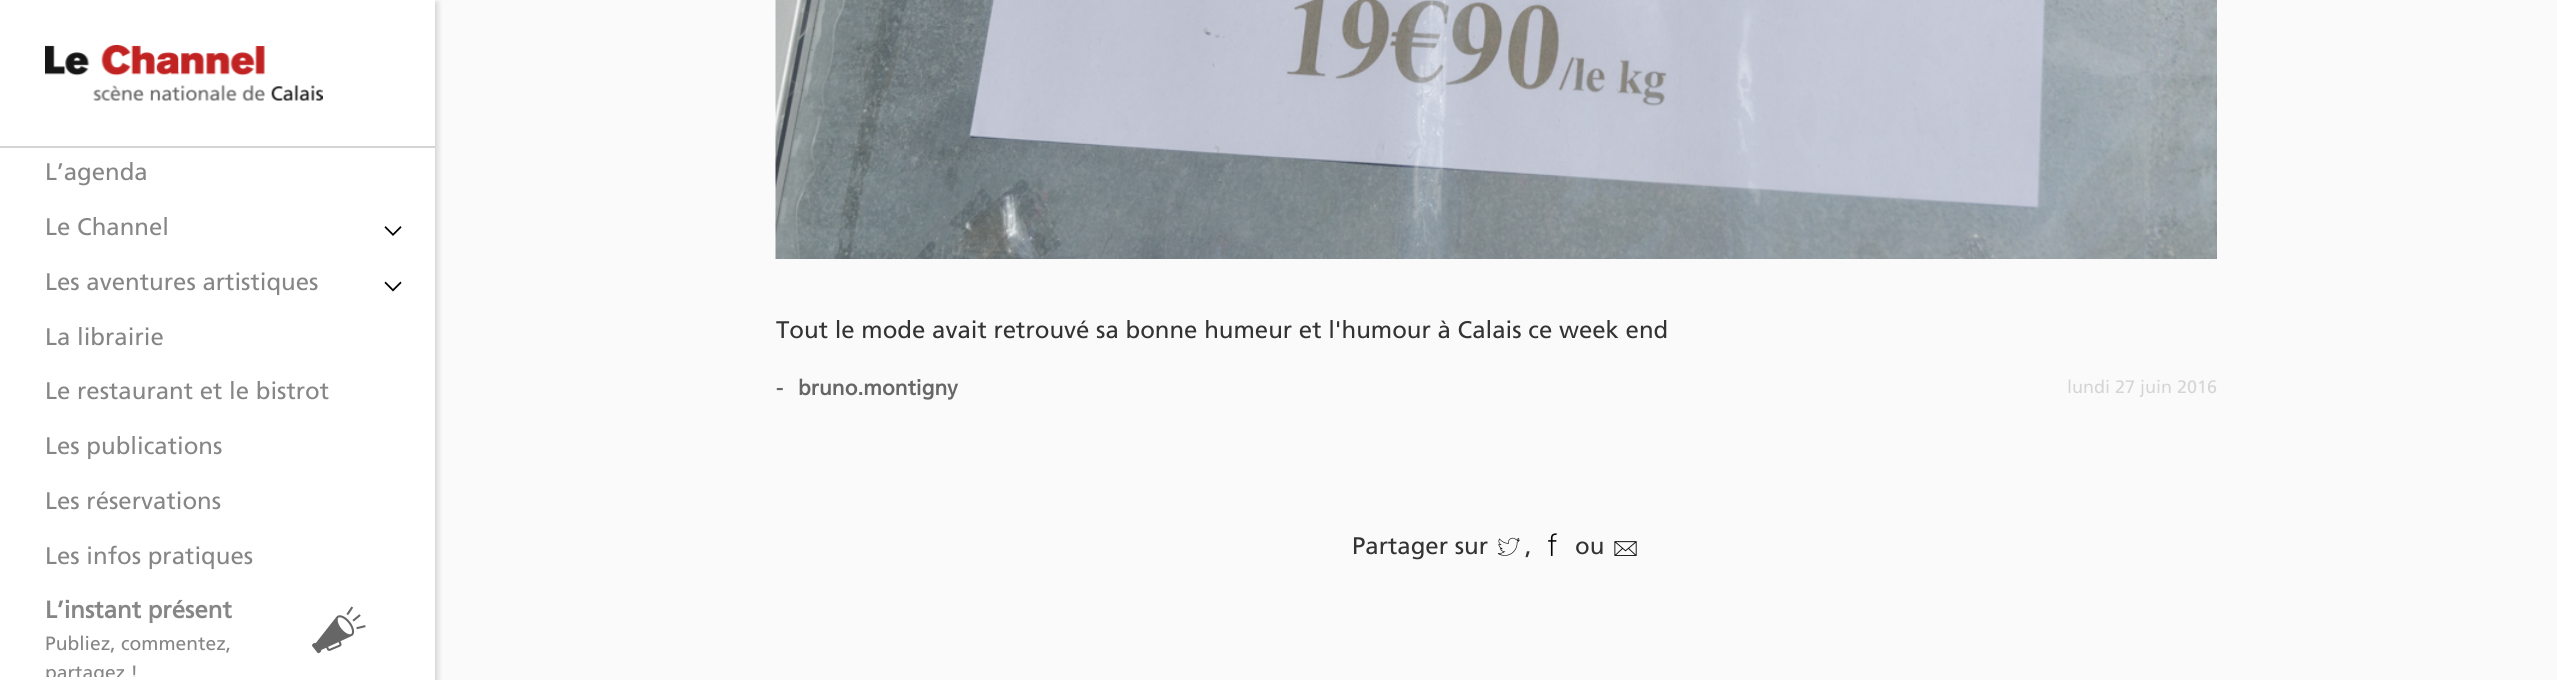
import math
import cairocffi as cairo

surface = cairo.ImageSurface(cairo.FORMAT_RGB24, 2557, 680)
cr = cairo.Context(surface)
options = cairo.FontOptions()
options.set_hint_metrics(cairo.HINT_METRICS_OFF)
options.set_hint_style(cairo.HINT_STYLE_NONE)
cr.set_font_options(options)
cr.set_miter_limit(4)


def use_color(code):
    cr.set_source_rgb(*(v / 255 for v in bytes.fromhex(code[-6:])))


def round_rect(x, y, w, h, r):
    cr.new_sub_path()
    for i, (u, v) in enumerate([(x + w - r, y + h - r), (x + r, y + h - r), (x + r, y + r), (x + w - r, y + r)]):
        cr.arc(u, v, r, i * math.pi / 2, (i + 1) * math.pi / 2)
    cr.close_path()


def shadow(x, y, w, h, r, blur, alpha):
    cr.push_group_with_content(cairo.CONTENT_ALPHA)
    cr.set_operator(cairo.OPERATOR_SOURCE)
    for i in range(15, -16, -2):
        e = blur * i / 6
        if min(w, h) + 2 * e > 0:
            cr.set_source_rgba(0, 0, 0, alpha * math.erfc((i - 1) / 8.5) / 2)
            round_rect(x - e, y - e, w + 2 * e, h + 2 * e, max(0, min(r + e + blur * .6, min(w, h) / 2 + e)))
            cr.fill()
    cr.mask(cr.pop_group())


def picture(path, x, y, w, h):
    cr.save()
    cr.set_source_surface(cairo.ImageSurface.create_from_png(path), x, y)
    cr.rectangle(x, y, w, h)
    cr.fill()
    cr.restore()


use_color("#ffffff")
cr.paint()
use_color("#fafafa")
cr.rectangle(435, 0, 2122, 680)
cr.fill()
cr.save()
cr.rectangle(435, 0, 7, 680)
cr.clip()
use_color("#000000")
shadow(0, 3, 435, 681, 0, 7.5, 0.12)
cr.restore()
cr.save()
cr.rectangle(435, 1, 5, 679)
cr.clip()
use_color("#000000")
shadow(0, 3, 435, 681, 0, 4, 0.16)
cr.restore()
use_color("#d5d5d5")
cr.rectangle(0, 146, 435, 2)
cr.fill()
picture("img1.png", 45, 45, 278, 56)
cr.select_font_face("Frutiger")
cr.set_font_size(24)
use_color("#868686")
cr.move_to(45, 180)
cr.show_text("L’agenda")
cr.move_to(45, 235)
cr.show_text("Le Channel")
use_color("#000000")
cr.new_path()
cr.move_to(393, 236)
cr.line_to(384.5, 227.5)
cr.line_to(385.5, 226)
cr.line_to(393, 233.5)
cr.line_to(400.5, 226)
cr.line_to(401.5, 227.5)
cr.close_path()
cr.fill()
use_color("#868686")
cr.move_to(45, 290)
cr.show_text("Les aventures artistiques")
use_color("#000000")
cr.new_path()
cr.move_to(393, 291.5)
cr.line_to(384.5, 283)
cr.line_to(385.5, 281.5)
cr.line_to(393, 289)
cr.line_to(400.5, 281.5)
cr.line_to(401.5, 283)
cr.close_path()
cr.fill()
use_color("#868686")
cr.move_to(45, 345)
cr.show_text("La librairie")
cr.move_to(45, 399)
cr.show_text("Le restaurant et le bistrot")
cr.move_to(45, 454)
cr.show_text("Les publications")
cr.move_to(45, 509)
cr.show_text("Les réservations")
cr.move_to(45, 564)
cr.show_text("Les infos pratiques")
cr.select_font_face("Frutiger", cairo.FONT_SLANT_NORMAL, cairo.FONT_WEIGHT_BOLD)
cr.move_to(45, 618)
cr.show_text("L’instant présent")
picture("img2.png", 312, 606, 54, 48)
cr.select_font_face("Frutiger")
cr.set_font_size(19.25)
cr.move_to(45, 650)
cr.show_text("Publiez, commentez,")
cr.save()
cr.rectangle(0, 147, 435, 530)
cr.clip()
cr.move_to(45, 679)
cr.show_text("partagez !")
cr.restore()
picture("img3.png", 775, 0, 1442, 259)
cr.set_font_size(24)
use_color("#333333")
cr.move_to(776, 338)
cr.show_text("Tout le mode avait retrouvé sa bonne humeur et l'humour à Calais ce week end")
cr.select_font_face("Frutiger", cairo.FONT_SLANT_NORMAL, cairo.FONT_WEIGHT_BOLD)
cr.set_font_size(21)
use_color("#666666")
cr.move_to(776, 395)
cr.show_text("-")
cr.move_to(798, 395)
cr.show_text("bruno.montigny")
cr.select_font_face("Frutiger")
cr.set_font_size(18)
use_color("#d5d5d5")
cr.move_to(2067, 393)
cr.show_text("lundi 27 juin 2016")
cr.set_font_size(24)
use_color("#333333")
cr.move_to(1352, 554)
cr.show_text("Partager sur")
picture("img4.png", 1497, 537, 23, 19)
cr.move_to(1525, 554)
cr.show_text(",")
picture("img5.png", 1548, 533, 9, 23)
cr.move_to(1575, 554)
cr.show_text("ou")
picture("img6.png", 1614, 541, 23, 15)
surface.write_to_png("result.png")
